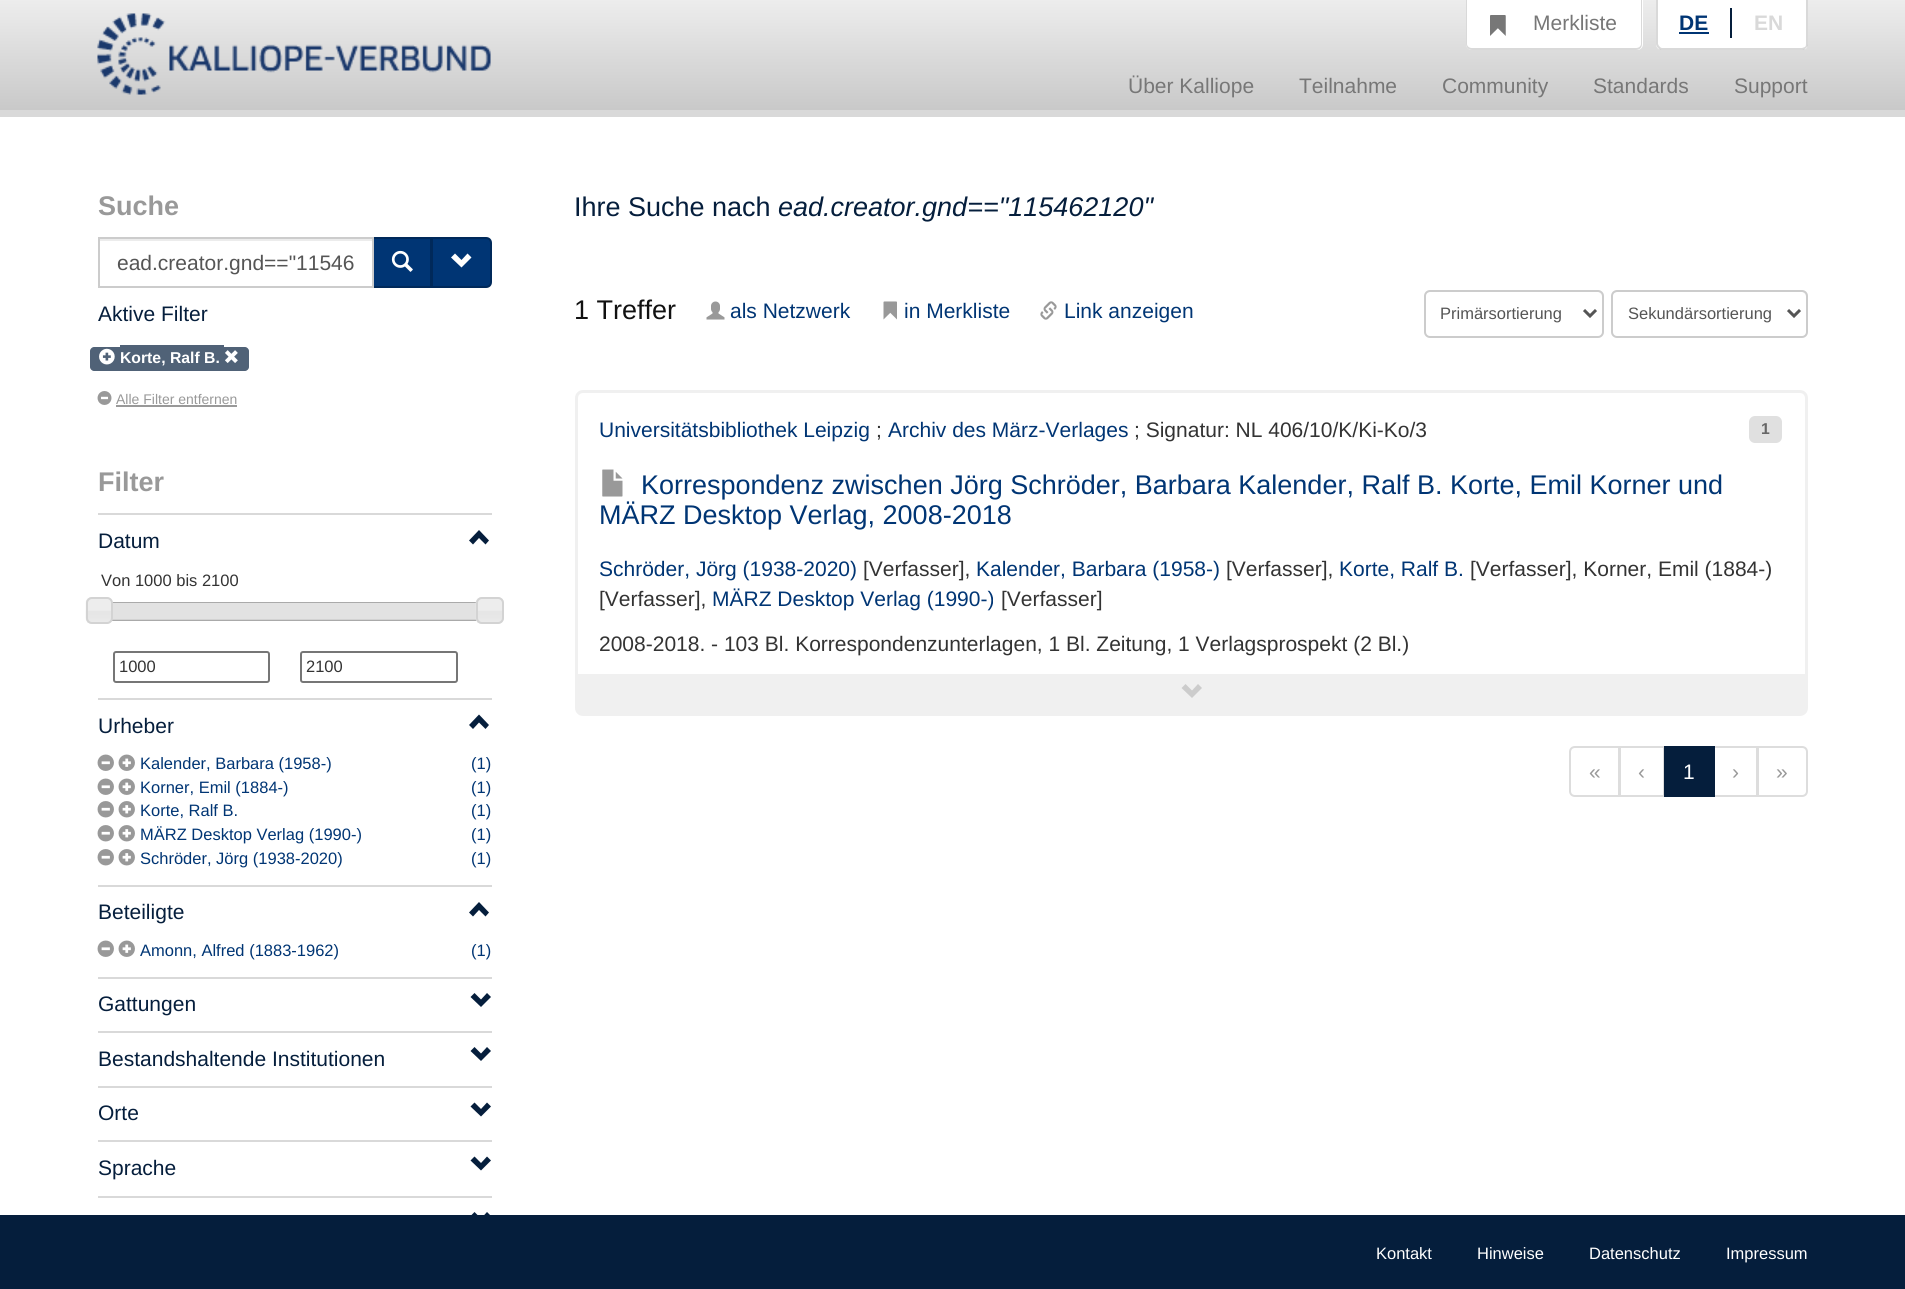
import math
import cairocffi as cairo

surface = cairo.ImageSurface(cairo.FORMAT_RGB24, 1905, 1289)
cr = cairo.Context(surface)
options = cairo.FontOptions()
options.set_hint_metrics(cairo.HINT_METRICS_OFF)
options.set_hint_style(cairo.HINT_STYLE_NONE)
cr.set_font_options(options)
cr.set_miter_limit(4)


def use_color(code):
    cr.set_source_rgb(*(v / 255 for v in bytes.fromhex(code[-6:])))


def round_rect(x, y, w, h, r):
    cr.new_sub_path()
    for i, (u, v) in enumerate([(x + w - r, y + h - r), (x + r, y + h - r), (x + r, y + r), (x + w - r, y + r)]):
        cr.arc(u, v, r, i * math.pi / 2, (i + 1) * math.pi / 2)
    cr.close_path()


def picture(path, x, y, w, h):
    cr.save()
    cr.set_source_surface(cairo.ImageSurface.create_from_png(path), x, y)
    cr.rectangle(x, y, w, h)
    cr.fill()
    cr.restore()


use_color("#ffffff")
cr.paint()
gradient = cairo.LinearGradient(953, 0, 953, 110)
gradient.add_color_stop_rgba(0, 0.929, 0.929, 0.929, 1)
gradient.add_color_stop_rgba(1, 0.788, 0.788, 0.788, 1)
cr.set_source(gradient)
cr.rectangle(0, 0, 1905, 110)
cr.fill()
use_color("#d9d9d9")
cr.rectangle(0, 110, 1905, 7)
cr.fill()
picture("img1.png", 97, 13, 394, 82)
use_color("#ffffff")
cr.new_path()
cr.move_to(1466, -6)
cr.line_to(1643, -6)
cr.line_to(1643, 44)
cr.curve_to(1643, 47.5, 1640.5, 50, 1637, 50)
cr.line_to(1472, 50)
cr.curve_to(1468.5, 50, 1466, 47.5, 1466, 44)
cr.close_path()
cr.fill()
use_color("#d9d9d9")
cr.set_fill_rule(cairo.FILL_RULE_EVEN_ODD)
cr.new_path()
cr.move_to(1466, -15)
cr.line_to(1642, -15)
cr.line_to(1642, 44)
cr.curve_to(1642, 47, 1640, 50, 1636, 50)
cr.line_to(1472, 50)
cr.curve_to(1468, 50, 1466, 47, 1466, 44)
cr.close_path()
cr.move_to(1467, -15)
cr.line_to(1641, -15)
cr.line_to(1641, 44)
cr.curve_to(1641, 46, 1639, 48, 1636, 48)
cr.line_to(1472, 48)
cr.curve_to(1469, 48, 1467, 46, 1467, 44)
cr.close_path()
cr.fill()
picture("img2.png", 1490, 15, 16, 21)
cr.select_font_face("Liberation Sans")
cr.set_font_size(21)
use_color("#777777")
cr.move_to(1533, 30)
cr.show_text("Merkliste")
use_color("#ffffff")
cr.new_path()
cr.move_to(1656, -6)
cr.line_to(1808, -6)
cr.line_to(1808, 44)
cr.curve_to(1808, 47.5, 1805.5, 50, 1802, 50)
cr.line_to(1662, 50)
cr.curve_to(1658.5, 50, 1656, 47.5, 1656, 44)
cr.close_path()
cr.fill()
cr.set_source_rgba(0, 0, 0, 0.15)
cr.set_fill_rule(cairo.FILL_RULE_WINDING)
cr.new_path()
cr.move_to(1808, 46)
cr.line_to(1806, 48)
cr.line_to(1805, 47)
cr.curve_to(1806, 46, 1806, 45, 1806, 44)
cr.line_to(1806, -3)
cr.line_to(1808, -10)
cr.close_path()
cr.fill()
cr.new_path()
cr.move_to(1660, 50)
cr.line_to(1658, 48)
cr.line_to(1659, 46)
cr.curve_to(1660, 47, 1661, 48, 1662, 48)
cr.line_to(1802, 48)
cr.line_to(1805, 47)
cr.line_to(1806, 48)
cr.line_to(1804, 50)
cr.close_path()
cr.fill()
cr.new_path()
cr.move_to(1656, -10)
cr.line_to(1658, 0)
cr.line_to(1658, 44)
cr.line_to(1659, 46)
cr.line_to(1658, 48)
cr.curve_to(1657, 47, 1656, 45, 1656, 44)
cr.close_path()
cr.fill()
use_color("#051e3c")
cr.rectangle(1730, 8, 2, 30)
cr.fill()
cr.select_font_face("Liberation Sans", cairo.FONT_SLANT_NORMAL, cairo.FONT_WEIGHT_BOLD)
use_color("#003574")
cr.move_to(1679, 30)
cr.show_text("DE")
cr.rectangle(1679, 32, 30, 2)
cr.fill()
use_color("#d9d9d9")
cr.move_to(1754, 30)
cr.show_text("EN")
cr.select_font_face("Liberation Sans")
use_color("#777777")
cr.move_to(1128, 93)
cr.show_text("Über Kalliope")
cr.move_to(1299, 93)
cr.show_text("Teilnahme")
cr.move_to(1442, 93)
cr.show_text("Community")
cr.move_to(1593, 93)
cr.show_text("Standards")
cr.move_to(1734, 93)
cr.show_text("Support")
cr.select_font_face("Liberation Sans", cairo.FONT_SLANT_NORMAL, cairo.FONT_WEIGHT_BOLD)
cr.set_font_size(27)
use_color("#999999")
cr.move_to(98, 215)
cr.show_text("Suche")
use_color("#ececec")
cr.rectangle(99, 239, 273, 2)
cr.fill()
use_color("#003574")
cr.rectangle(373, 238, 58, 49)
cr.fill_preserve()
use_color("#00295a")
cr.stroke()
cr.rectangle(99, 238, 274, 49)
use_color("#cccccc")
cr.stroke()
cr.select_font_face("Liberation Sans")
cr.set_font_size(21)
use_color("#555555")
cr.move_to(117, 270)
cr.show_text("ead.creator.gnd==\"11546")
picture("img3.png", 391, 250, 22, 22)
use_color("#003574")
cr.new_path()
cr.move_to(432, 238)
cr.line_to(486, 238)
cr.curve_to(489, 238, 491, 240, 491, 243)
cr.line_to(491, 282)
cr.curve_to(491, 285, 489, 287, 486, 287)
cr.line_to(432, 287)
cr.close_path()
cr.fill_preserve()
use_color("#00295a")
cr.stroke()
use_color("#ffffff")
cr.new_path()
cr.move_to(451, 257.5)
cr.line_to(461.5, 267.5)
cr.line_to(471.5, 257.5)
cr.line_to(467.5, 253.5)
cr.line_to(461.5, 260)
cr.line_to(455, 253.5)
cr.close_path()
cr.fill()
use_color("#051e3c")
cr.move_to(98, 321)
cr.show_text("Aktive Filter")
use_color("#506277")
cr.new_path()
cr.move_to(94, 347)
cr.line_to(120, 347)
cr.line_to(120, 371)
cr.line_to(94, 371)
cr.curve_to(92, 371, 90, 369, 90, 367)
cr.line_to(90, 351)
cr.curve_to(90, 349, 92, 347, 94, 347)
cr.close_path()
cr.fill()
cr.rectangle(120, 345, 104, 26)
cr.fill()
cr.new_path()
cr.move_to(224, 347)
cr.line_to(245, 347)
cr.curve_to(247, 347, 249, 349, 249, 351)
cr.line_to(249, 367)
cr.curve_to(249, 369, 247, 371, 245, 371)
cr.line_to(224, 371)
cr.close_path()
cr.fill()
picture("img4.png", 99, 348, 16, 17)
cr.select_font_face("Liberation Sans", cairo.FONT_SLANT_NORMAL, cairo.FONT_WEIGHT_BOLD)
cr.set_font_size(15.75)
use_color("#ffffff")
cr.move_to(120, 363)
cr.show_text("Korte, Ralf B.")
picture("img5.png", 225, 350, 13, 13)
picture("img6.png", 97, 391, 15, 14)
cr.select_font_face("Liberation Sans")
cr.set_font_size(14)
use_color("#999999")
cr.move_to(116, 404)
cr.show_text("Alle Filter entfernen")
cr.rectangle(116, 405, 121, 2)
cr.fill()
cr.select_font_face("Liberation Sans", cairo.FONT_SLANT_NORMAL, cairo.FONT_WEIGHT_BOLD)
cr.set_font_size(27)
cr.move_to(98, 491)
cr.show_text("Filter")
use_color("#d9d9d9")
cr.rectangle(98, 513, 394, 2)
cr.fill()
cr.select_font_face("Liberation Sans")
cr.set_font_size(21)
use_color("#051e3c")
cr.move_to(98, 548)
cr.show_text("Datum")
cr.new_path()
cr.move_to(469, 540.5)
cr.line_to(473, 544.5)
cr.line_to(479, 538)
cr.line_to(485.5, 544.5)
cr.line_to(489, 540.5)
cr.line_to(479, 530)
cr.close_path()
cr.fill()
cr.set_font_size(16.5)
use_color("#333333")
cr.move_to(101, 586)
cr.show_text("Von 1000 bis 2100")
cr.rectangle(99, 603, 392, 17)
use_color("#aaaaaa")
cr.stroke()
picture("img7.png", 85, 597, 27, 27)
use_color("#cccccc")
cr.rectangle(112, 619, 364, 1)
cr.fill()
picture("img8.png", 112, 603, 364, 17)
round_rect(87, 598, 25, 25, 5)
use_color("#d3d3d3")
cr.stroke()
picture("img9.png", 475, 597, 29, 27)
round_rect(477, 598, 26, 25, 5)
cr.stroke()
round_rect(114, 652, 155, 30, 2)
use_color("#767676")
cr.stroke()
use_color("#333333")
cr.move_to(119, 672)
cr.show_text("1000")
round_rect(301, 652, 156, 30, 2)
use_color("#767676")
cr.stroke()
use_color("#333333")
cr.move_to(306, 672)
cr.show_text("2100")
use_color("#d9d9d9")
cr.rectangle(98, 698, 394, 2)
cr.fill()
cr.set_font_size(21)
use_color("#051e3c")
cr.move_to(98, 733)
cr.show_text("Urheber")
cr.new_path()
cr.move_to(469, 725)
cr.line_to(473, 729)
cr.line_to(479, 722.5)
cr.line_to(485.5, 729)
cr.line_to(489, 725)
cr.line_to(479, 714.5)
cr.close_path()
cr.fill()
picture("img10.png", 97, 754, 17, 17)
picture("img11.png", 118, 754, 17, 17)
cr.set_font_size(16.5)
use_color("#003574")
cr.move_to(140, 769)
cr.show_text("Kalender, Barbara (1958-)")
cr.move_to(471, 769)
cr.show_text("(1)")
picture("img10.png", 97, 778, 17, 17)
picture("img11.png", 118, 778, 17, 17)
cr.move_to(140, 793)
cr.show_text("Korner, Emil (1884-)")
cr.move_to(471, 793)
cr.show_text("(1)")
picture("img12.png", 97, 801, 17, 17)
picture("img13.png", 118, 801, 17, 17)
cr.move_to(140, 816)
cr.show_text("Korte, Ralf B.")
cr.move_to(471, 816)
cr.show_text("(1)")
picture("img12.png", 97, 825, 17, 17)
picture("img13.png", 118, 825, 17, 17)
cr.move_to(140, 840)
cr.show_text("MÄRZ Desktop Verlag (1990-)")
cr.move_to(471, 840)
cr.show_text("(1)")
picture("img12.png", 97, 849, 17, 17)
picture("img13.png", 118, 849, 17, 17)
cr.move_to(140, 864)
cr.show_text("Schröder, Jörg (1938-2020)")
cr.move_to(471, 864)
cr.show_text("(1)")
use_color("#d9d9d9")
cr.rectangle(98, 885, 394, 2)
cr.fill()
cr.set_font_size(21)
use_color("#051e3c")
cr.move_to(98, 919)
cr.show_text("Beteiligte")
cr.new_path()
cr.move_to(469, 912.5)
cr.line_to(473, 916.5)
cr.line_to(479, 910)
cr.line_to(485.5, 916.5)
cr.line_to(489, 912.5)
cr.line_to(479, 902)
cr.close_path()
cr.fill()
picture("img10.png", 97, 940, 17, 17)
picture("img11.png", 118, 940, 17, 17)
cr.set_font_size(16.5)
use_color("#003574")
cr.move_to(140, 956)
cr.show_text("Amonn, Alfred (1883-1962)")
cr.move_to(471, 956)
cr.show_text("(1)")
use_color("#d9d9d9")
cr.rectangle(98, 977, 394, 2)
cr.fill()
cr.set_font_size(21)
use_color("#051e3c")
cr.move_to(98, 1011)
cr.show_text("Gattungen")
cr.new_path()
cr.move_to(470.5, 997)
cr.line_to(481, 1007)
cr.line_to(491, 997)
cr.line_to(487, 993)
cr.line_to(481, 999.5)
cr.line_to(474.5, 993)
cr.close_path()
cr.fill()
use_color("#d9d9d9")
cr.rectangle(98, 1031, 394, 2)
cr.fill()
use_color("#051e3c")
cr.move_to(98, 1066)
cr.show_text("Bestandshaltende Institutionen")
cr.new_path()
cr.move_to(470.5, 1051)
cr.line_to(481, 1061)
cr.line_to(491, 1051)
cr.line_to(487, 1047)
cr.line_to(481, 1053.5)
cr.line_to(474.5, 1047)
cr.close_path()
cr.fill()
use_color("#d9d9d9")
cr.rectangle(98, 1086, 394, 2)
cr.fill()
use_color("#051e3c")
cr.move_to(98, 1120)
cr.show_text("Orte")
cr.new_path()
cr.move_to(470.5, 1106.5)
cr.line_to(481, 1116.5)
cr.line_to(491, 1106.5)
cr.line_to(487, 1102.5)
cr.line_to(481, 1109)
cr.line_to(474.5, 1102.5)
cr.close_path()
cr.fill()
use_color("#d9d9d9")
cr.rectangle(98, 1140, 394, 2)
cr.fill()
use_color("#051e3c")
cr.move_to(98, 1175)
cr.show_text("Sprache")
cr.new_path()
cr.move_to(470.5, 1160.5)
cr.line_to(481, 1170.5)
cr.line_to(491, 1160.5)
cr.line_to(487, 1156.5)
cr.line_to(481, 1163)
cr.line_to(474.5, 1156.5)
cr.close_path()
cr.fill()
use_color("#d9d9d9")
cr.rectangle(98, 1196, 394, 2)
cr.fill()
use_color("#051e3c")
cr.new_path()
cr.move_to(470.5, 1216)
cr.line_to(481, 1226)
cr.line_to(491, 1216)
cr.line_to(487, 1212)
cr.line_to(481, 1218.5)
cr.line_to(474.5, 1212)
cr.close_path()
cr.fill()
cr.set_font_size(27)
cr.move_to(574, 216)
cr.show_text("Ihre Suche nach")
cr.select_font_face("Liberation Sans", cairo.FONT_SLANT_ITALIC)
cr.move_to(778, 216)
cr.show_text("ead.creator.gnd==\"115462120\"")
cr.select_font_face("Liberation Sans")
use_color("#111111")
cr.move_to(574, 319)
cr.show_text("1 Treffer")
picture("img14.png", 706, 301, 19, 19)
cr.set_font_size(21)
use_color("#003574")
cr.move_to(730, 318)
cr.show_text("als Netzwerk")
picture("img15.png", 883, 301, 14, 19)
cr.move_to(904, 318)
cr.show_text("in Merkliste")
picture("img16.png", 1040, 301, 17, 19)
cr.move_to(1064, 318)
cr.show_text("Link anzeigen")
use_color("#ececec")
cr.new_path()
cr.move_to(1430, 292)
cr.line_to(1598, 292)
cr.curve_to(1600, 292, 1602, 295, 1602, 297)
cr.curve_to(1602, 294, 1601, 292, 1598, 291)
cr.line_to(1430, 291)
cr.curve_to(1427, 291, 1425, 294, 1425, 297)
cr.curve_to(1425, 295, 1427, 292, 1430, 292)
cr.close_path()
cr.fill()
round_rect(1425, 291, 178, 46, 5)
use_color("#cccccc")
cr.stroke()
cr.new_path()
cr.move_to(1584, 310)
cr.line_to(1590, 316)
cr.line_to(1596, 310)
use_color("#555555")
cr.set_line_width(3)
cr.stroke()
cr.set_font_size(16.5)
cr.move_to(1440, 319)
cr.show_text("Primärsortierung")
use_color("#ececec")
cr.new_path()
cr.move_to(1617, 292)
cr.line_to(1802, 292)
cr.curve_to(1804, 292, 1806, 295, 1806, 297)
cr.line_to(1806, 296)
cr.curve_to(1806, 293, 1804, 291, 1801, 291)
cr.line_to(1618, 291)
cr.curve_to(1616, 291, 1614, 292, 1613, 294)
cr.curve_to(1614, 293, 1616, 292, 1617, 292)
cr.close_path()
cr.fill()
round_rect(1612, 291, 195, 46, 5)
use_color("#cccccc")
cr.set_line_width(2)
cr.stroke()
cr.new_path()
cr.move_to(1788, 310)
cr.line_to(1794, 316)
cr.line_to(1800, 310)
use_color("#555555")
cr.set_line_width(3)
cr.stroke()
cr.move_to(1628, 319)
cr.show_text("Sekundärsortierung")
round_rect(576.5, 391.5, 1230, 323, 6.5)
use_color("#f0f0f0")
cr.stroke()
cr.set_font_size(21)
use_color("#003574")
cr.move_to(599, 437)
cr.show_text("Universitätsbibliothek Leipzig")
use_color("#333333")
cr.move_to(876, 437)
cr.show_text(";")
use_color("#003574")
cr.move_to(888, 437)
cr.show_text("Archiv des März-Verlages")
use_color("#333333")
cr.move_to(1134, 437)
cr.show_text("; Signatur: NL 406/10/K/Ki-Ko/3")
use_color("#e0e0e0")
round_rect(1749, 416, 33, 27, 6)
cr.fill()
cr.select_font_face("Liberation Sans", cairo.FONT_SLANT_NORMAL, cairo.FONT_WEIGHT_BOLD)
cr.set_font_size(15.75)
use_color("#666666")
cr.move_to(1761, 434)
cr.show_text("1")
picture("img17.png", 602, 469, 21, 28)
cr.select_font_face("Liberation Sans")
cr.set_font_size(27)
use_color("#003574")
cr.move_to(641, 494)
cr.show_text("Korrespondenz zwischen Jörg Schröder, Barbara Kalender, Ralf B. Korte, Emil Korner und")
cr.move_to(599, 524)
cr.show_text("MÄRZ Desktop Verlag, 2008-2018")
cr.set_font_size(21)
cr.move_to(599, 576)
cr.show_text("Schröder, Jörg (1938-2020)")
use_color("#333333")
cr.move_to(863, 576)
cr.show_text("[Verfasser],")
use_color("#003574")
cr.move_to(976, 576)
cr.show_text("Kalender, Barbara (1958-)")
use_color("#333333")
cr.move_to(1226, 576)
cr.show_text("[Verfasser],")
use_color("#003574")
cr.move_to(1339, 576)
cr.show_text("Korte, Ralf B.")
use_color("#333333")
cr.move_to(1470, 576)
cr.show_text("[Verfasser], Korner, Emil (1884-)")
cr.move_to(599, 606)
cr.show_text("[Verfasser],")
use_color("#003574")
cr.move_to(712, 606)
cr.show_text("MÄRZ Desktop Verlag (1990-)")
use_color("#333333")
cr.move_to(1001, 606)
cr.show_text("[Verfasser]")
cr.move_to(599, 651)
cr.show_text("2008-2018. - 103 Bl. Korrespondenzunterlagen, 1 Bl. Zeitung, 1 Verlagsprospekt (2 Bl.)")
use_color("#f0f0f0")
cr.rectangle(578, 674, 1227, 39)
cr.fill()
use_color("#cccccc")
cr.new_path()
cr.move_to(1181.5, 688)
cr.line_to(1192, 698)
cr.line_to(1202, 688)
cr.line_to(1198, 684)
cr.line_to(1192, 690.5)
cr.line_to(1185.5, 684)
cr.close_path()
cr.fill()
cr.new_path()
cr.move_to(1575, 747)
cr.line_to(1619, 747)
cr.line_to(1619, 796)
cr.line_to(1575, 796)
cr.curve_to(1572, 796, 1570, 794, 1570, 791)
cr.line_to(1570, 752)
cr.curve_to(1570, 749, 1572, 747, 1575, 747)
cr.close_path()
use_color("#dddddd")
cr.set_line_width(2)
cr.stroke()
use_color("#999999")
cr.move_to(1589, 779)
cr.show_text("«")
cr.rectangle(1620, 747, 44, 49)
use_color("#dddddd")
cr.stroke()
use_color("#999999")
cr.move_to(1638, 779)
cr.show_text("‹")
cr.rectangle(1714, 747, 43, 49)
use_color("#dddddd")
cr.stroke()
use_color("#051e3c")
cr.rectangle(1664, 746, 51, 51)
cr.fill()
use_color("#ffffff")
cr.move_to(1683, 779)
cr.show_text("1")
use_color("#999999")
cr.move_to(1732, 779)
cr.show_text("›")
use_color("#ffffff")
cr.new_path()
cr.move_to(1758, 747)
cr.line_to(1802, 747)
cr.curve_to(1805, 747, 1807, 749, 1807, 752)
cr.line_to(1807, 791)
cr.curve_to(1807, 794, 1805, 796, 1802, 796)
cr.line_to(1758, 796)
cr.close_path()
cr.fill_preserve()
use_color("#dddddd")
cr.stroke()
use_color("#999999")
cr.move_to(1776, 779)
cr.show_text("»")
use_color("#051e3c")
cr.rectangle(0, 1215, 1905, 74)
cr.fill()
cr.set_font_size(16.5)
use_color("#ffffff")
cr.move_to(1376, 1259)
cr.show_text("Kontakt")
cr.move_to(1477, 1259)
cr.show_text("Hinweise")
cr.move_to(1589, 1259)
cr.show_text("Datenschutz")
cr.move_to(1726, 1259)
cr.show_text("Impressum")
surface.write_to_png("result.png")
